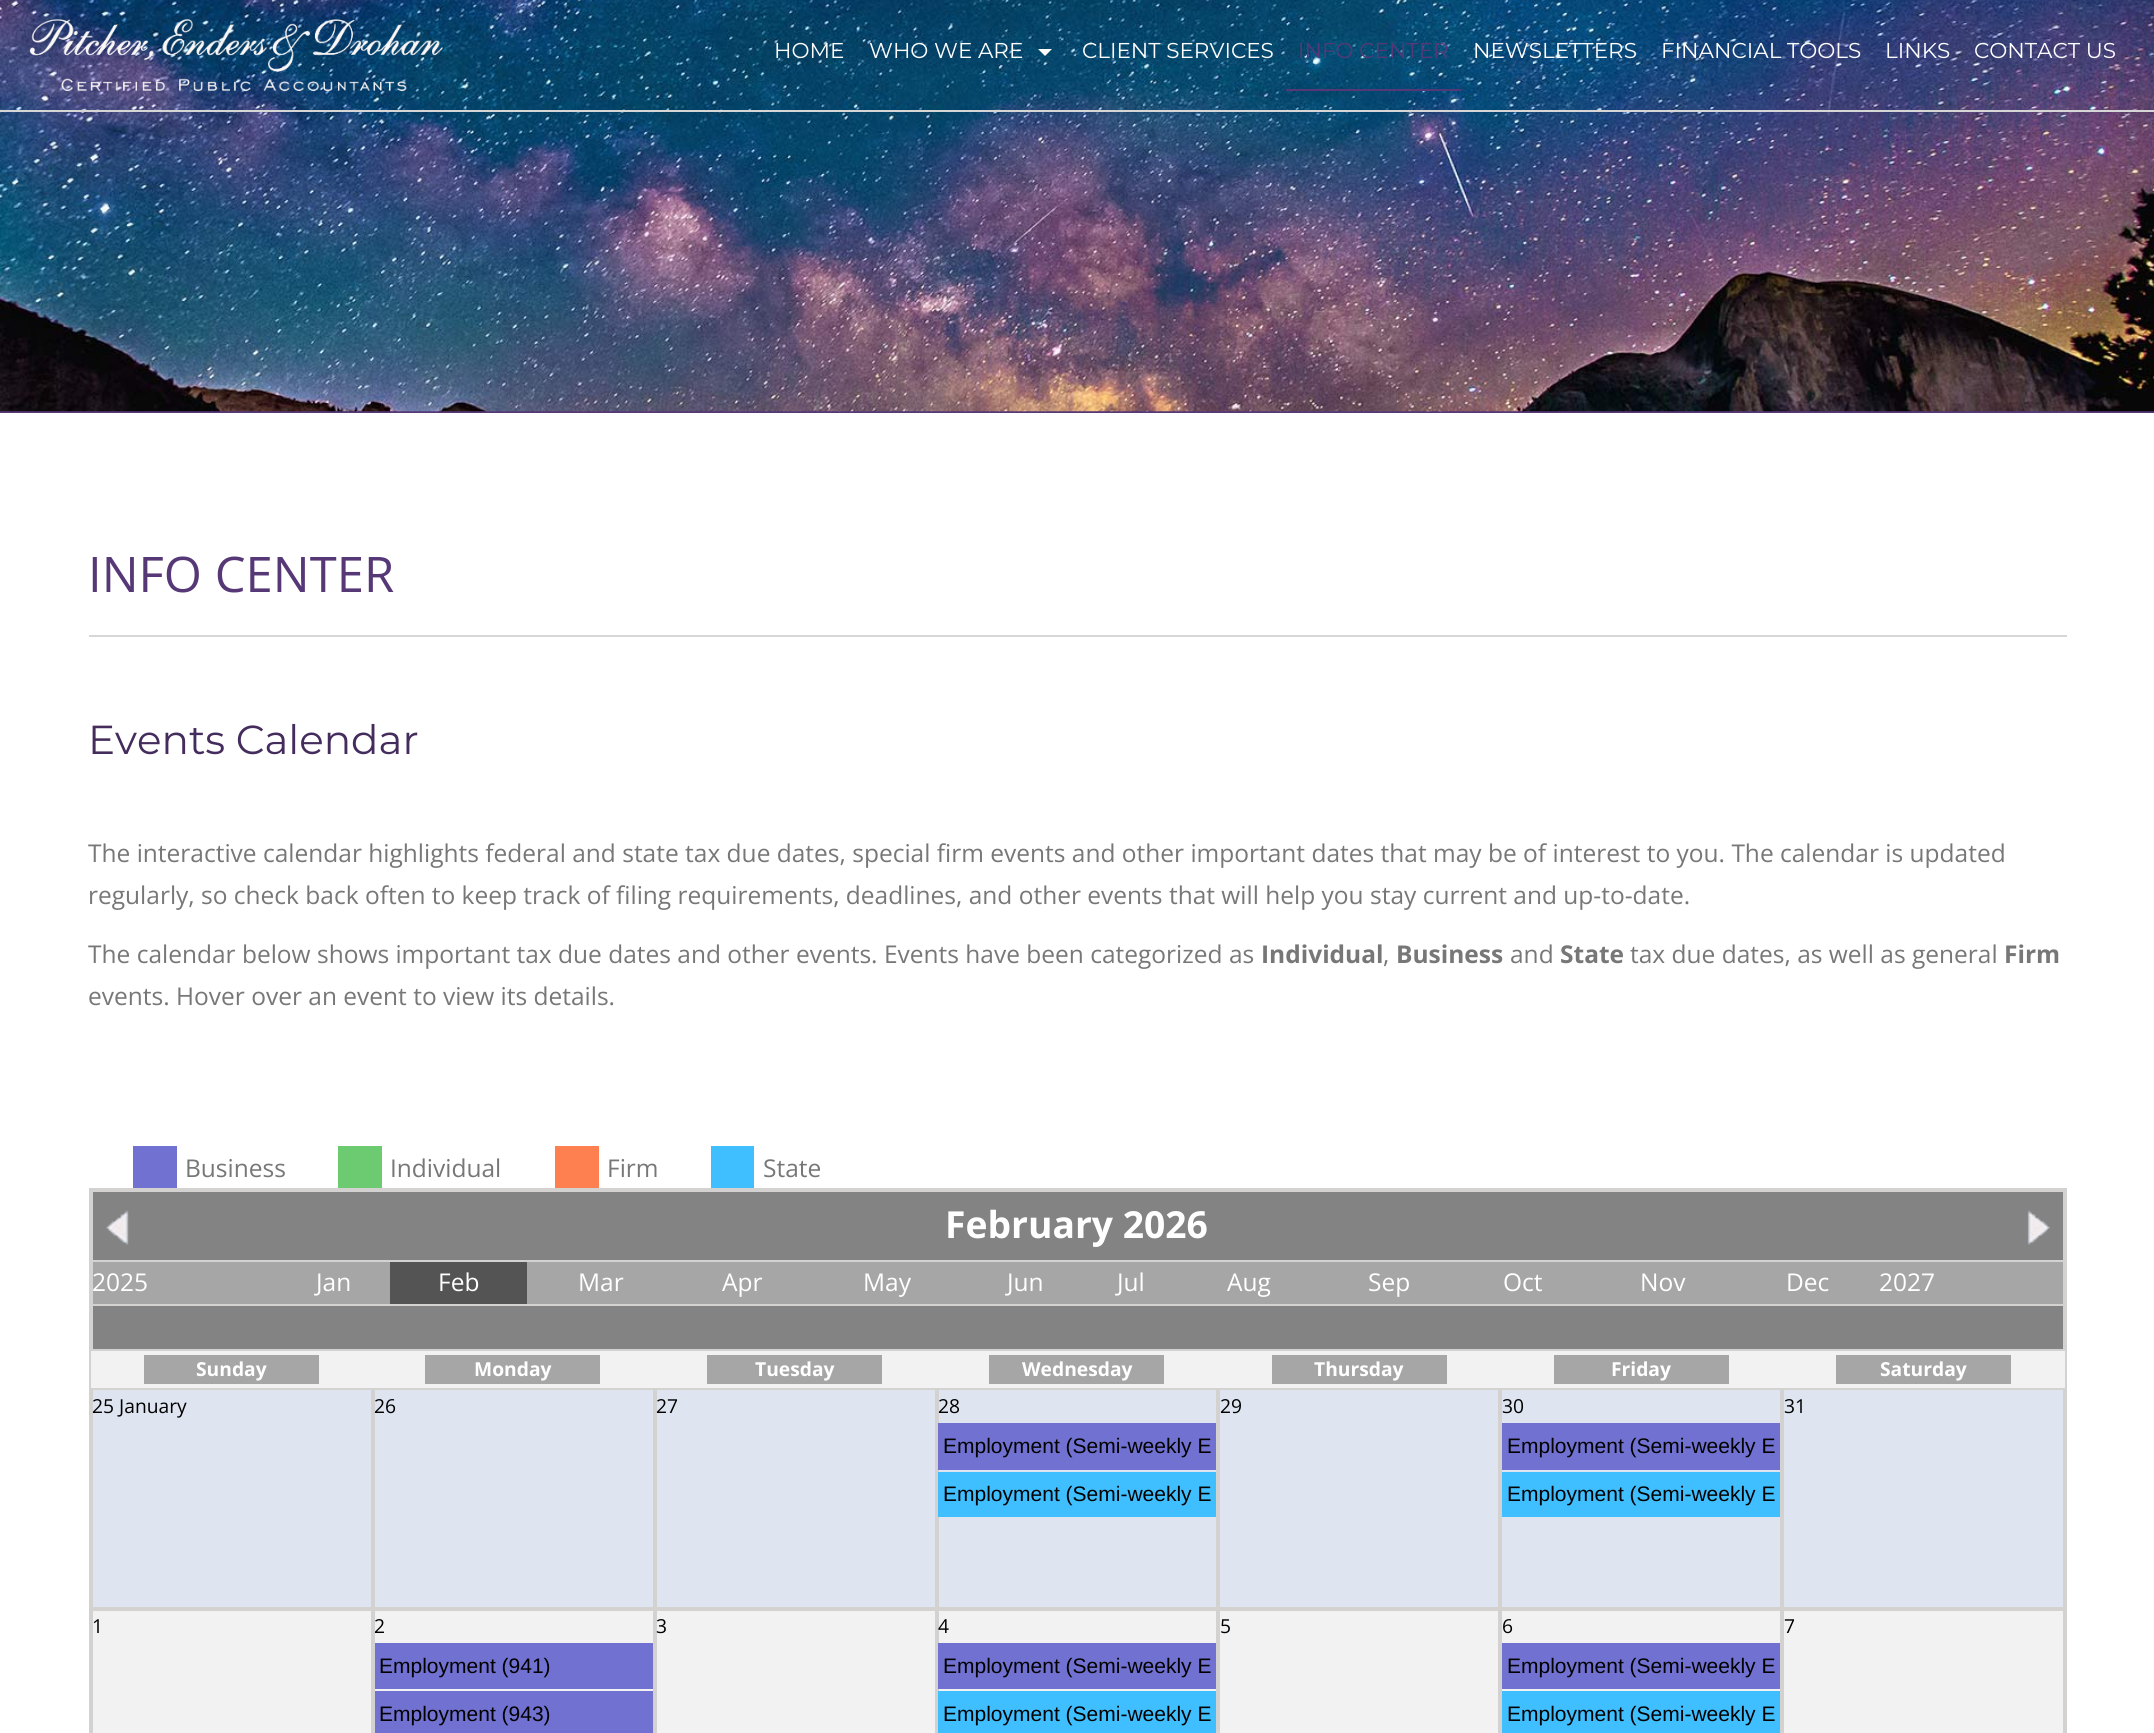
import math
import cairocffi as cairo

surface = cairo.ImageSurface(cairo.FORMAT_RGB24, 2154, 1733)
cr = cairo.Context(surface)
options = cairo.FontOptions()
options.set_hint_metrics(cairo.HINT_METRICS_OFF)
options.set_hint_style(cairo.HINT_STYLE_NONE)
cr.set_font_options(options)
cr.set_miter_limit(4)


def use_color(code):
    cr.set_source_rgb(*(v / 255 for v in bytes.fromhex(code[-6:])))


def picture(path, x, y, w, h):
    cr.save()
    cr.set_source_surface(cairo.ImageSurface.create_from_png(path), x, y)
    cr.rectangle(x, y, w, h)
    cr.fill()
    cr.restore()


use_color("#ffffff")
cr.paint()
use_color("#563877")
cr.rectangle(0, 411, 2154, 2)
cr.fill()
picture("img1.png", 0, 0, 2154, 412)
use_color("#d6d6d6")
cr.rectangle(0, 110, 2154, 2)
cr.fill()
picture("img2.png", 29, 18, 414, 74)
cr.select_font_face("Montserrat")
cr.set_font_size(21.5)
use_color("#ffffff")
cr.move_to(774, 58)
cr.show_text("HOME")
cr.move_to(869, 58)
cr.show_text("WHO WE ARE")
cr.new_path()
cr.move_to(1038, 49)
cr.line_to(1052, 49)
cr.line_to(1045, 56)
cr.close_path()
cr.fill()
cr.move_to(1082, 58)
cr.show_text("CLIENT SERVICES")
use_color("#563877")
cr.rectangle(1286, 89, 175, 2)
cr.fill()
cr.move_to(1298, 58)
cr.show_text("INFO CENTER")
use_color("#ffffff")
cr.move_to(1473, 58)
cr.show_text("NEWSLETTERS")
cr.move_to(1661, 58)
cr.show_text("FINANCIAL TOOLS")
cr.move_to(1885, 58)
cr.show_text("LINKS")
cr.move_to(1974, 58)
cr.show_text("CONTACT US")
cr.select_font_face("Open Sans")
cr.set_font_size(49)
use_color("#563877")
cr.move_to(88, 592)
cr.show_text("INFO CENTER")
use_color("#d6d6d6")
cr.rectangle(89, 635, 1978, 2)
cr.fill()
cr.select_font_face("Montserrat")
cr.set_font_size(40.5)
use_color("#442c5d")
cr.move_to(88, 754)
cr.show_text("Events Calendar")
cr.select_font_face("Open Sans")
cr.set_font_size(24.5)
use_color("#777777")
cr.move_to(88, 862)
cr.show_text("The interactive calendar highlights federal and state tax due dates, special firm events and other important dates that may be of interest to you. The calendar is updated")
cr.move_to(88, 904)
cr.show_text("regularly, so check back often to keep track of filing requirements, deadlines, and other events that will help you stay current and up-to-date.")
cr.move_to(88, 963)
cr.show_text("The calendar below shows important tax due dates and other events. Events have been categorized as")
cr.select_font_face("Open Sans", cairo.FONT_SLANT_NORMAL, cairo.FONT_WEIGHT_BOLD)
cr.move_to(1261, 963)
cr.show_text("Individual")
cr.select_font_face("Open Sans")
cr.move_to(1383, 963)
cr.show_text(",")
cr.select_font_face("Open Sans", cairo.FONT_SLANT_NORMAL, cairo.FONT_WEIGHT_BOLD)
cr.move_to(1396, 963)
cr.show_text("Business")
cr.select_font_face("Open Sans")
cr.move_to(1510, 963)
cr.show_text("and")
cr.select_font_face("Open Sans", cairo.FONT_SLANT_NORMAL, cairo.FONT_WEIGHT_BOLD)
cr.move_to(1560, 963)
cr.show_text("State")
cr.select_font_face("Open Sans")
cr.move_to(1630, 963)
cr.show_text("tax due dates, as well as general")
cr.select_font_face("Open Sans", cairo.FONT_SLANT_NORMAL, cairo.FONT_WEIGHT_BOLD)
cr.move_to(2004, 963)
cr.show_text("Firm")
cr.select_font_face("Open Sans")
cr.move_to(88, 1005)
cr.show_text("events. Hover over an event to view its details.")
use_color("#7171d1")
cr.rectangle(133, 1146, 44, 42)
cr.fill()
use_color("#777777")
cr.move_to(185, 1177)
cr.show_text("Business")
use_color("#6ccb71")
cr.rectangle(338, 1146, 44, 42)
cr.fill()
use_color("#777777")
cr.move_to(390, 1177)
cr.show_text("Individual")
use_color("#fe8050")
cr.rectangle(555, 1146, 44, 42)
cr.fill()
use_color("#777777")
cr.move_to(607, 1177)
cr.show_text("Firm")
use_color("#3fbfff")
cr.rectangle(711, 1146, 43, 42)
cr.fill()
use_color("#777777")
cr.move_to(763, 1177)
cr.show_text("State")
use_color("#d3d2d0")
cr.rectangle(89, 1188, 1978, 4)
cr.fill()
cr.rectangle(89, 1260, 1976, 2)
cr.fill()
cr.rectangle(89, 1304, 1976, 2)
cr.fill()
cr.rectangle(2063, 1188, 4, 545)
cr.fill()
cr.rectangle(89, 1188, 4, 545)
cr.fill()
use_color("#838383")
cr.rectangle(93, 1192, 1970, 68)
cr.fill()
picture("img3.png", 106, 1210, 23, 35)
cr.select_font_face("Open Sans", cairo.FONT_SLANT_NORMAL, cairo.FONT_WEIGHT_BOLD)
cr.set_font_size(37.25)
use_color("#ffffff")
cr.move_to(945, 1238)
cr.show_text("February 2026")
picture("img4.png", 2027, 1210, 23, 35)
use_color("#a6a6a6")
cr.rectangle(93, 1262, 1970, 42)
cr.fill()
cr.select_font_face("Open Sans")
cr.set_font_size(24.5)
use_color("#ffffff")
cr.move_to(92, 1291)
cr.show_text("2025")
cr.move_to(316, 1291)
cr.show_text("Jan")
use_color("#545454")
cr.rectangle(390, 1262, 137, 42)
cr.fill()
use_color("#ffffff")
cr.move_to(438, 1291)
cr.show_text("Feb")
cr.move_to(578, 1291)
cr.show_text("Mar")
cr.move_to(722, 1291)
cr.show_text("Apr")
cr.move_to(863, 1291)
cr.show_text("May")
cr.move_to(1007, 1291)
cr.show_text("Jun")
cr.move_to(1117, 1291)
cr.show_text("Jul")
cr.move_to(1227, 1291)
cr.show_text("Aug")
cr.move_to(1368, 1291)
cr.show_text("Sep")
cr.move_to(1503, 1291)
cr.show_text("Oct")
cr.move_to(1640, 1291)
cr.show_text("Nov")
cr.move_to(1786, 1291)
cr.show_text("Dec")
cr.move_to(1879, 1291)
cr.show_text("2027")
use_color("#838383")
cr.rectangle(93, 1306, 1970, 43)
cr.fill()
use_color("#d3d2d0")
cr.rectangle(1780, 1349, 287, 4)
cr.fill()
cr.rectangle(1780, 1386, 287, 4)
cr.fill()
cr.rectangle(1780, 1607, 287, 4)
cr.fill()
cr.rectangle(1780, 1607, 4, 126)
cr.fill()
cr.rectangle(1498, 1607, 285, 4)
cr.fill()
cr.rectangle(1780, 1386, 4, 224)
cr.fill()
cr.rectangle(1498, 1388, 285, 2)
cr.fill()
cr.rectangle(1780, 1349, 4, 41)
cr.fill()
cr.rectangle(935, 1349, 848, 2)
cr.fill()
cr.rectangle(1498, 1607, 4, 126)
cr.fill()
cr.rectangle(1216, 1607, 286, 4)
cr.fill()
cr.rectangle(1498, 1386, 4, 224)
cr.fill()
cr.rectangle(1216, 1388, 286, 2)
cr.fill()
cr.rectangle(1216, 1607, 4, 126)
cr.fill()
cr.rectangle(935, 1607, 285, 4)
cr.fill()
cr.rectangle(1216, 1386, 4, 224)
cr.fill()
cr.rectangle(935, 1388, 285, 2)
cr.fill()
cr.rectangle(935, 1607, 4, 126)
cr.fill()
cr.rectangle(653, 1607, 285, 4)
cr.fill()
cr.rectangle(935, 1386, 4, 224)
cr.fill()
cr.rectangle(653, 1388, 285, 2)
cr.fill()
cr.rectangle(935, 1349, 4, 41)
cr.fill()
cr.rectangle(653, 1349, 285, 2)
cr.fill()
cr.rectangle(653, 1607, 4, 126)
cr.fill()
cr.rectangle(371, 1607, 285, 4)
cr.fill()
cr.rectangle(653, 1386, 4, 224)
cr.fill()
cr.rectangle(371, 1388, 285, 2)
cr.fill()
cr.rectangle(653, 1349, 4, 41)
cr.fill()
cr.rectangle(371, 1349, 285, 2)
cr.fill()
cr.rectangle(89, 1349, 286, 4)
cr.fill()
cr.rectangle(371, 1607, 4, 126)
cr.fill()
cr.rectangle(89, 1607, 286, 4)
cr.fill()
cr.rectangle(371, 1386, 4, 224)
cr.fill()
cr.rectangle(89, 1386, 286, 4)
cr.fill()
use_color("#f2f2f2")
cr.rectangle(91, 1351, 1974, 37)
cr.fill()
use_color("#a6a6a6")
cr.rectangle(144, 1355, 175, 29)
cr.fill()
cr.select_font_face("Open Sans", cairo.FONT_SLANT_NORMAL, cairo.FONT_WEIGHT_BOLD)
cr.set_font_size(19.25)
use_color("#ffffff")
cr.move_to(196, 1376)
cr.show_text("Sunday")
use_color("#a6a6a6")
cr.rectangle(425, 1355, 175, 29)
cr.fill()
use_color("#ffffff")
cr.move_to(474, 1376)
cr.show_text("Monday")
use_color("#a6a6a6")
cr.rectangle(707, 1355, 175, 29)
cr.fill()
use_color("#ffffff")
cr.move_to(755, 1376)
cr.show_text("Tuesday")
use_color("#a6a6a6")
cr.rectangle(989, 1355, 175, 29)
cr.fill()
use_color("#ffffff")
cr.move_to(1022, 1376)
cr.show_text("Wednesday")
use_color("#a6a6a6")
cr.rectangle(1272, 1355, 175, 29)
cr.fill()
use_color("#ffffff")
cr.move_to(1314, 1376)
cr.show_text("Thursday")
use_color("#a6a6a6")
cr.rectangle(1554, 1355, 175, 29)
cr.fill()
use_color("#ffffff")
cr.move_to(1611, 1376)
cr.show_text("Friday")
use_color("#a6a6a6")
cr.rectangle(1836, 1355, 175, 29)
cr.fill()
use_color("#ffffff")
cr.move_to(1880, 1376)
cr.show_text("Saturday")
use_color("#dee4f0")
cr.rectangle(93, 1390, 278, 217)
cr.fill()
cr.select_font_face("Open Sans")
use_color("#000000")
cr.move_to(92, 1413)
cr.show_text("25 January")
use_color("#dee4f0")
cr.rectangle(375, 1390, 278, 217)
cr.fill()
use_color("#000000")
cr.move_to(374, 1413)
cr.show_text("26")
use_color("#dee4f0")
cr.rectangle(657, 1390, 278, 217)
cr.fill()
use_color("#000000")
cr.move_to(656, 1413)
cr.show_text("27")
use_color("#dee4f0")
cr.rectangle(939, 1390, 277, 217)
cr.fill()
use_color("#000000")
cr.move_to(938, 1413)
cr.show_text("28")
use_color("#7171d1")
cr.rectangle(938, 1423, 278, 47)
cr.fill()
cr.select_font_face("Liberation Sans")
cr.set_font_size(21)
use_color("#000000")
cr.move_to(943, 1453)
cr.show_text("Employment (Semi-weekly E")
use_color("#3fbfff")
cr.rectangle(938, 1472, 278, 45)
cr.fill()
use_color("#000000")
cr.move_to(943, 1501)
cr.show_text("Employment (Semi-weekly E")
use_color("#dee4f0")
cr.rectangle(1220, 1390, 278, 217)
cr.fill()
cr.select_font_face("Open Sans")
cr.set_font_size(19.25)
use_color("#000000")
cr.move_to(1220, 1413)
cr.show_text("29")
use_color("#dee4f0")
cr.rectangle(1502, 1390, 278, 217)
cr.fill()
use_color("#000000")
cr.move_to(1502, 1413)
cr.show_text("30")
use_color("#7171d1")
cr.rectangle(1502, 1423, 278, 47)
cr.fill()
cr.select_font_face("Liberation Sans")
cr.set_font_size(21)
use_color("#000000")
cr.move_to(1507, 1453)
cr.show_text("Employment (Semi-weekly E")
use_color("#3fbfff")
cr.rectangle(1502, 1472, 278, 45)
cr.fill()
use_color("#000000")
cr.move_to(1507, 1501)
cr.show_text("Employment (Semi-weekly E")
use_color("#dee4f0")
cr.rectangle(1784, 1390, 279, 217)
cr.fill()
cr.select_font_face("Open Sans")
cr.set_font_size(19.25)
use_color("#000000")
cr.move_to(1784, 1413)
cr.show_text("31")
use_color("#f2f2f2")
cr.rectangle(93, 1611, 278, 122)
cr.fill()
use_color("#000000")
cr.move_to(92, 1633)
cr.show_text("1")
use_color("#f2f2f2")
cr.rectangle(375, 1611, 278, 80)
cr.fill()
use_color("#000000")
cr.move_to(374, 1633)
cr.show_text("2")
use_color("#7171d1")
cr.rectangle(375, 1643, 278, 46)
cr.fill()
cr.select_font_face("Liberation Sans")
cr.set_font_size(21)
use_color("#000000")
cr.move_to(379, 1673)
cr.show_text("Employment (941)")
use_color("#7171d1")
cr.rectangle(375, 1691, 278, 42)
cr.fill()
use_color("#000000")
cr.move_to(379, 1721)
cr.show_text("Employment (943)")
use_color("#f2f2f2")
cr.rectangle(657, 1611, 278, 122)
cr.fill()
cr.select_font_face("Open Sans")
cr.set_font_size(19.25)
use_color("#000000")
cr.move_to(656, 1633)
cr.show_text("3")
use_color("#f2f2f2")
cr.rectangle(939, 1611, 277, 80)
cr.fill()
use_color("#000000")
cr.move_to(938, 1633)
cr.show_text("4")
use_color("#7171d1")
cr.rectangle(938, 1643, 278, 46)
cr.fill()
cr.select_font_face("Liberation Sans")
cr.set_font_size(21)
use_color("#000000")
cr.move_to(943, 1673)
cr.show_text("Employment (Semi-weekly E")
use_color("#3fbfff")
cr.rectangle(938, 1691, 278, 42)
cr.fill()
use_color("#000000")
cr.move_to(943, 1721)
cr.show_text("Employment (Semi-weekly E")
use_color("#f2f2f2")
cr.rectangle(1220, 1611, 278, 122)
cr.fill()
cr.select_font_face("Open Sans")
cr.set_font_size(19.25)
use_color("#000000")
cr.move_to(1220, 1633)
cr.show_text("5")
use_color("#f2f2f2")
cr.rectangle(1502, 1611, 278, 80)
cr.fill()
use_color("#000000")
cr.move_to(1502, 1633)
cr.show_text("6")
use_color("#7171d1")
cr.rectangle(1502, 1643, 278, 46)
cr.fill()
cr.select_font_face("Liberation Sans")
cr.set_font_size(21)
use_color("#000000")
cr.move_to(1507, 1673)
cr.show_text("Employment (Semi-weekly E")
use_color("#3fbfff")
cr.rectangle(1502, 1691, 278, 42)
cr.fill()
use_color("#000000")
cr.move_to(1507, 1721)
cr.show_text("Employment (Semi-weekly E")
use_color("#f2f2f2")
cr.rectangle(1784, 1611, 279, 122)
cr.fill()
cr.select_font_face("Open Sans")
cr.set_font_size(19.25)
use_color("#000000")
cr.move_to(1784, 1633)
cr.show_text("7")
surface.write_to_png("result.png")
